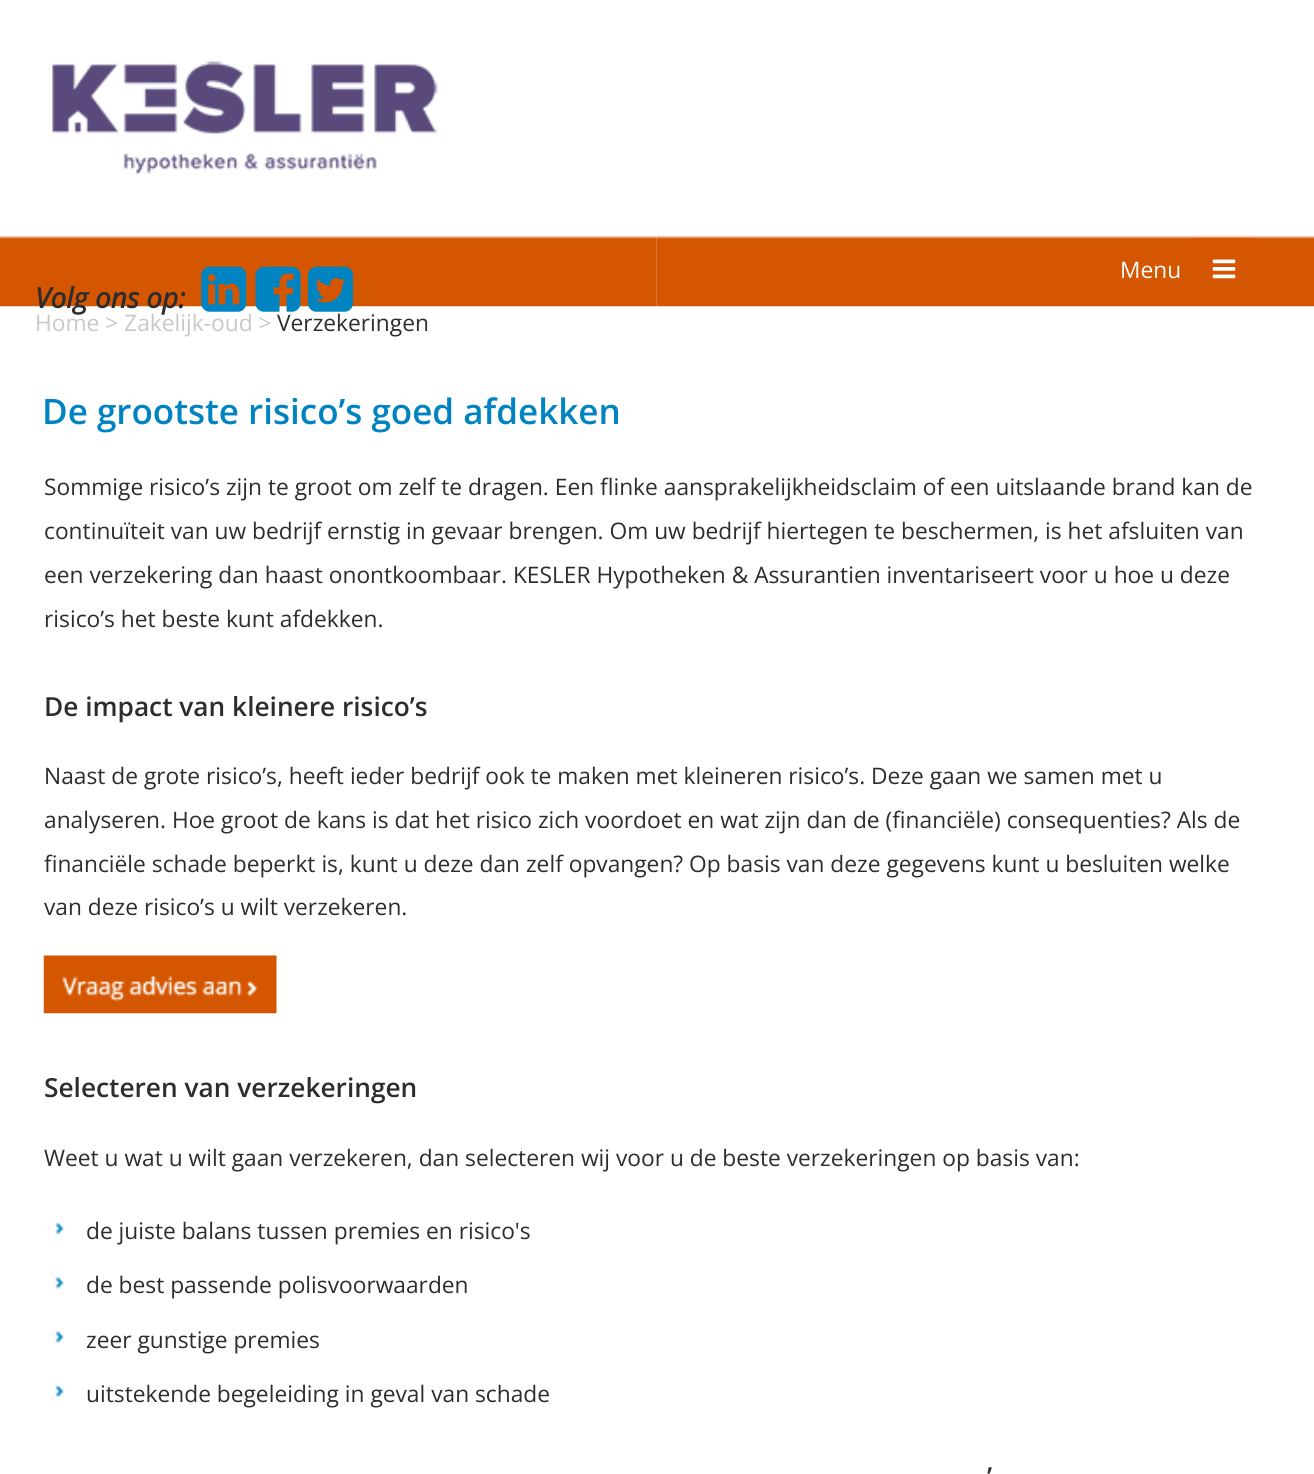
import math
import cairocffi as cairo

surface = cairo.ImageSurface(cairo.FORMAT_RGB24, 1314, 1474)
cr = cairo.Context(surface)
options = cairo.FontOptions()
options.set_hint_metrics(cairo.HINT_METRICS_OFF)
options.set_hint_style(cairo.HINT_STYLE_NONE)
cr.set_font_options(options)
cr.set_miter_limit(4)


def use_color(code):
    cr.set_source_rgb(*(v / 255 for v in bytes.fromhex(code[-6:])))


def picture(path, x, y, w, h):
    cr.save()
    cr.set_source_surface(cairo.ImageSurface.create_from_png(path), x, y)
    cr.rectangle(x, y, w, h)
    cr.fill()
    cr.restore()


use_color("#ffffff")
cr.paint()
picture("img1.png", 0, 235, 657, 72)
picture("img2.png", 656, 235, 658, 72)
picture("img3.png", 52, 61, 386, 113)
cr.select_font_face("Open Sans")
cr.set_font_size(22.75)
use_color("#ffffff")
cr.move_to(1120, 278)
cr.show_text("Menu")
use_color("#d45600")
cr.rectangle(1195, 238, 58, 1)
cr.fill()
picture("img4.png", 1212, 259, 24, 20)
cr.select_font_face("Open Sans", cairo.FONT_SLANT_ITALIC, cairo.FONT_WEIGHT_BOLD)
cr.set_font_size(28)
use_color("#2d2c2f")
cr.move_to(35, 308)
cr.show_text("Volg ons op:")
picture("img5.png", 201, 266, 46, 46)
picture("img6.png", 255, 266, 46, 46)
picture("img7.png", 308, 266, 45, 46)
cr.select_font_face("Open Sans")
cr.set_font_size(22.75)
use_color("#c8c8c7")
cr.move_to(35, 331)
cr.show_text("Home > Zakelijk-oud >")
use_color("#2d2c2f")
cr.move_to(277, 331)
cr.show_text("Verzekeringen")
cr.select_font_face("Open Sans SemiBold")
cr.set_font_size(35)
use_color("#0083c1")
cr.move_to(42, 424)
cr.show_text("De grootste risico’s goed afdekken")
cr.select_font_face("Open Sans")
cr.set_font_size(22.75)
use_color("#2d2c2f")
cr.move_to(44, 495)
cr.show_text("Sommige risico’s zijn te groot om zelf te dragen. Een flinke aansprakelijkheidsclaim of een uitslaande brand kan de")
cr.move_to(44, 539)
cr.show_text("continuïteit van uw bedrijf ernstig in gevaar brengen. Om uw bedrijf hiertegen te beschermen, is het afsluiten van")
cr.move_to(44, 583)
cr.show_text("een verzekering dan haast onontkoombaar. KESLER Hypotheken & Assurantien inventariseert voor u hoe u deze")
cr.move_to(44, 627)
cr.show_text("risico’s het beste kunt afdekken.")
cr.select_font_face("Open Sans SemiBold")
cr.set_font_size(26.25)
cr.move_to(44, 716)
cr.show_text("De impact van kleinere risico’s")
cr.select_font_face("Open Sans")
cr.set_font_size(22.75)
cr.move_to(44, 784)
cr.show_text("Naast de grote risico’s, heeft ieder bedrijf ook te maken met kleineren risico’s. Deze gaan we samen met u")
cr.move_to(44, 828)
cr.show_text("analyseren. Hoe groot de kans is dat het risico zich voordoet en wat zijn dan de (financiële) consequenties? Als de")
cr.move_to(44, 872)
cr.show_text("financiële schade beperkt is, kunt u deze dan zelf opvangen? Op basis van deze gegevens kunt u besluiten welke")
cr.move_to(44, 915)
cr.show_text("van deze risico’s u wilt verzekeren.")
picture("img8.png", 43, 955, 234, 59)
cr.select_font_face("Open Sans SemiBold")
cr.set_font_size(26.25)
cr.move_to(44, 1097)
cr.show_text("Selecteren van verzekeringen")
cr.select_font_face("Open Sans")
cr.set_font_size(22.75)
cr.move_to(44, 1166)
cr.show_text("Weet u wat u wilt gaan verzekeren, dan selecteren wij voor u de beste verzekeringen op basis van:")
picture("img9.png", 55, 1222, 9, 13)
cr.move_to(86, 1239)
cr.show_text("de juiste balans tussen premies en risico's")
picture("img10.png", 55, 1277, 9, 12)
cr.move_to(86, 1293)
cr.show_text("de best passende polisvoorwaarden")
picture("img11.png", 55, 1331, 9, 12)
cr.move_to(86, 1348)
cr.show_text("zeer gunstige premies")
picture("img12.png", 55, 1385, 9, 12)
cr.move_to(86, 1402)
cr.show_text("uitstekende begeleiding in geval van schade")
cr.select_font_face("Open Sans SemiBold")
cr.set_font_size(26.25)
cr.move_to(987, 1486)
cr.show_text("’")
surface.write_to_png("result.png")
